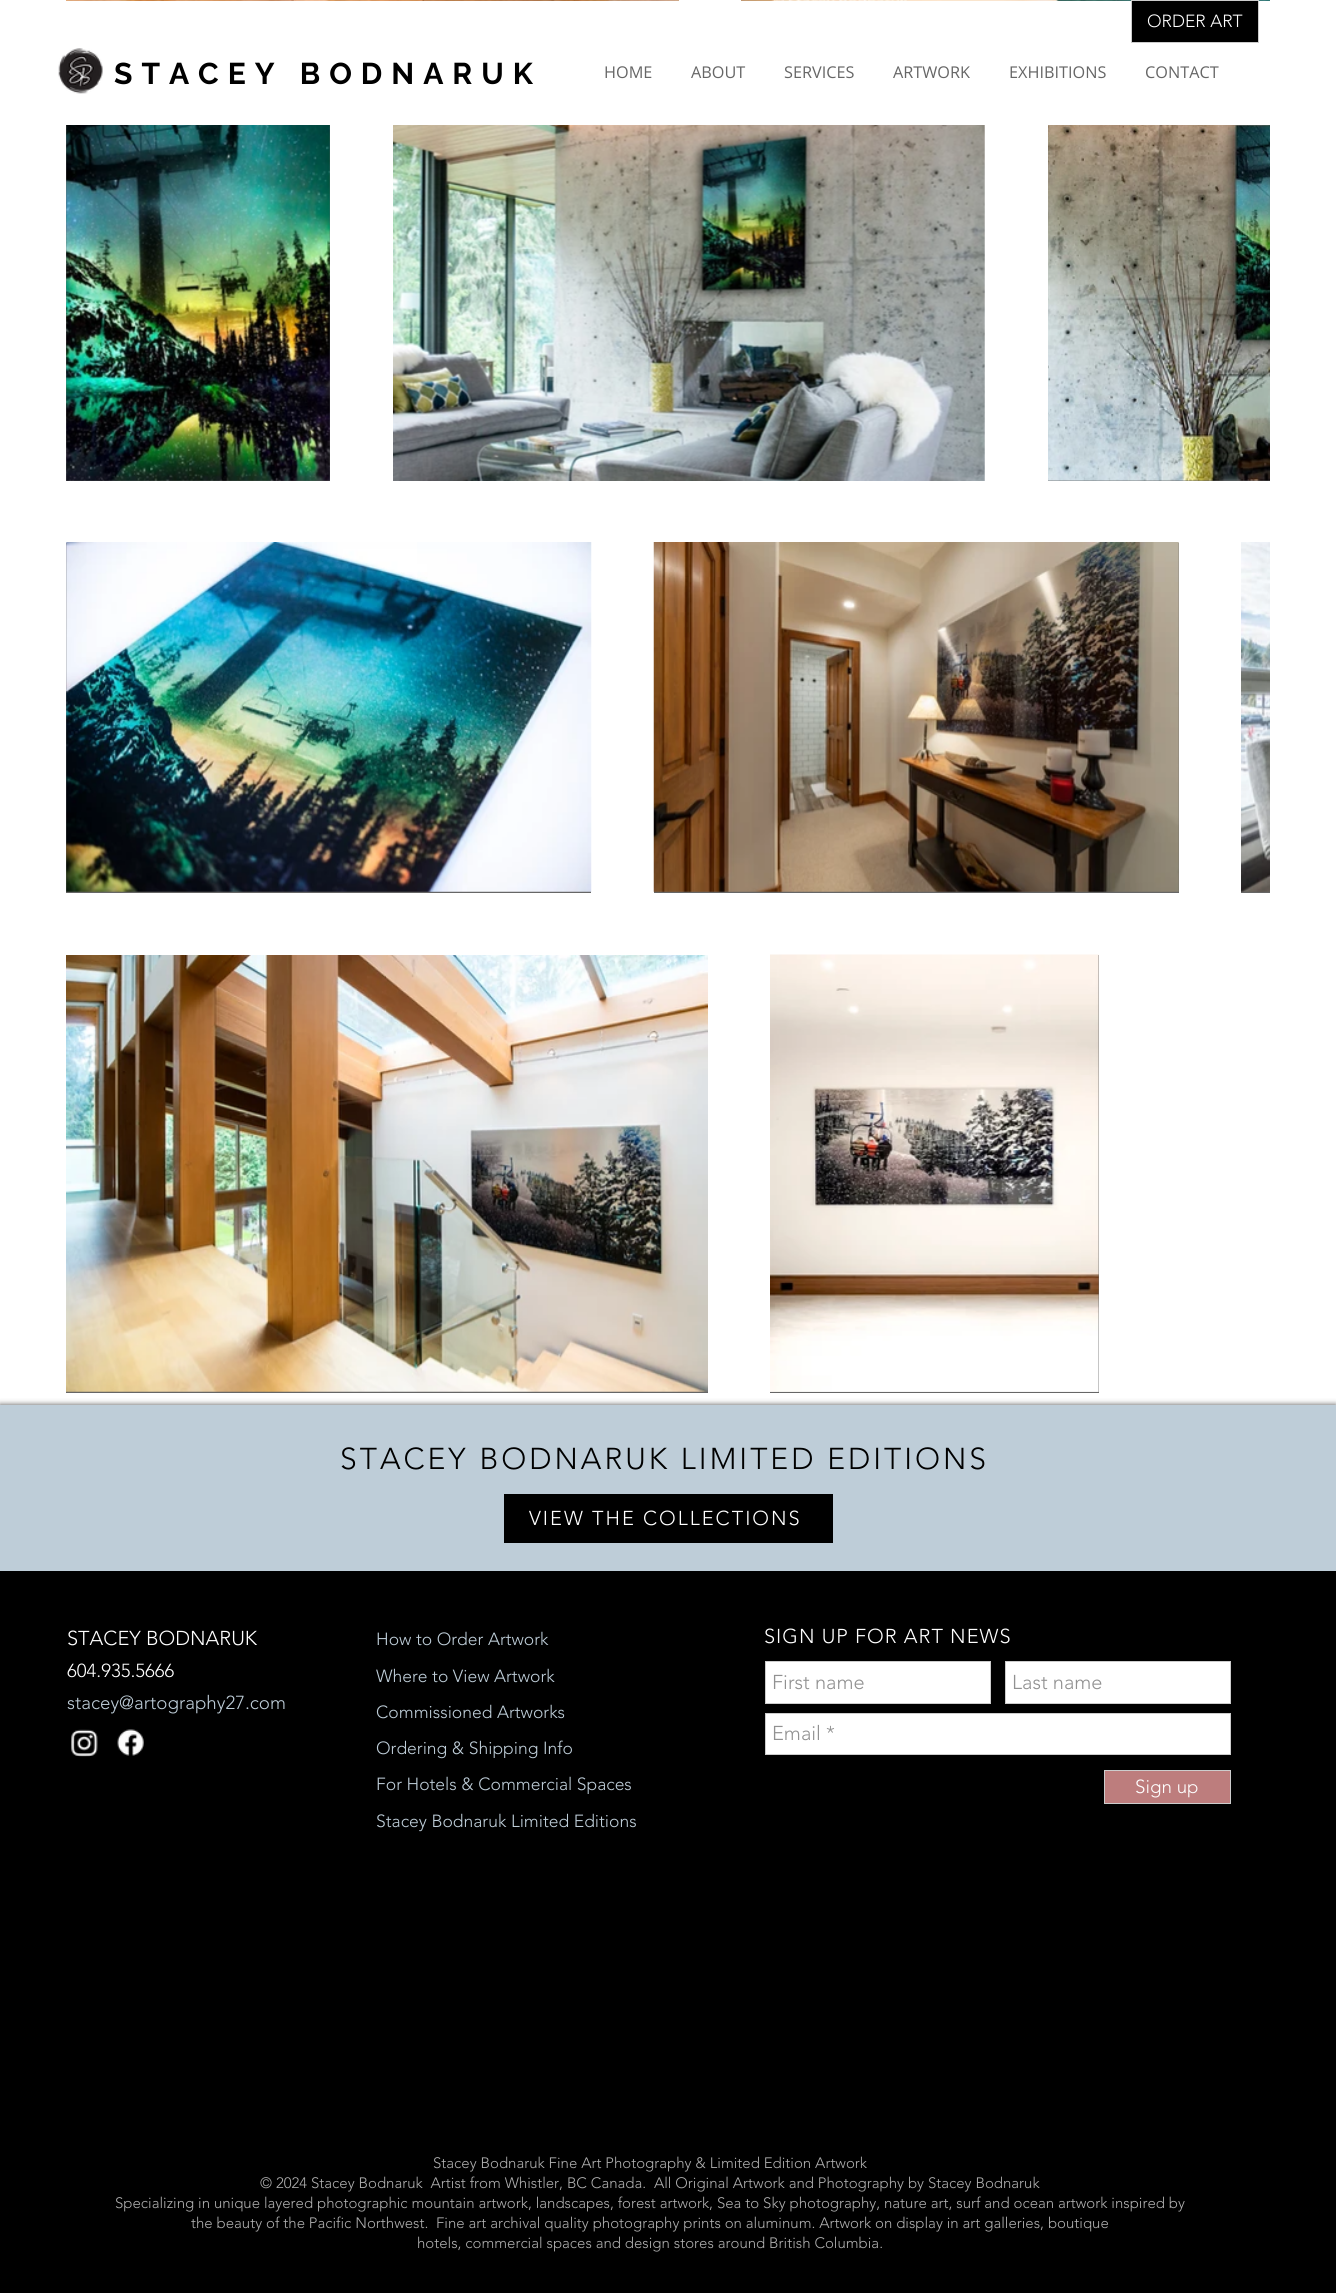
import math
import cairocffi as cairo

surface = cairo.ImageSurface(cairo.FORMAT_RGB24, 1336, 2293)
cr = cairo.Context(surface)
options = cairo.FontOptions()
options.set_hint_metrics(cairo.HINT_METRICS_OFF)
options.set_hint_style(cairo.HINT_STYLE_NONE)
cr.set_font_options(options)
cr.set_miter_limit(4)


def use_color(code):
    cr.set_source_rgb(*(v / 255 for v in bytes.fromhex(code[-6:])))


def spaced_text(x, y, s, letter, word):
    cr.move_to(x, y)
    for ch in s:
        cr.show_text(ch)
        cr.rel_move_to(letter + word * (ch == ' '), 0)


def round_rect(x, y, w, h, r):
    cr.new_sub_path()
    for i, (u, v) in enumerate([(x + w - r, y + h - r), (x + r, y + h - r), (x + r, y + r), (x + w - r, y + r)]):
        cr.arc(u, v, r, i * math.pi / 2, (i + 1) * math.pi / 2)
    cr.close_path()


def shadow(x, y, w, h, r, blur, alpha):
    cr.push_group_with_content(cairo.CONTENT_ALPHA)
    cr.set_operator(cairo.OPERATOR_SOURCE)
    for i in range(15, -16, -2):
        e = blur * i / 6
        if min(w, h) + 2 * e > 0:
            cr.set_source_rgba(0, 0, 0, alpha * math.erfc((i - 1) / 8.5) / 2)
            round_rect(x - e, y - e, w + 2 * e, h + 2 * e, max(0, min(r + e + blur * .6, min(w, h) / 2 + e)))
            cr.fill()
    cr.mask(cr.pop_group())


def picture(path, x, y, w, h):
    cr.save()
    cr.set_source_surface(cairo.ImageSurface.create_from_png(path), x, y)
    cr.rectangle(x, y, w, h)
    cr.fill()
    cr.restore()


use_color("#ffffff")
cr.paint()
picture("img1.png", 66, 0, 613, 1)
picture("img2.png", 741, 0, 529, 1)
use_color("#666666")
cr.rectangle(66, 125, 264, 356)
cr.fill()
picture("img3.png", 66, 125, 264, 356)
picture("img4.png", 393, 125, 592, 356)
cr.rectangle(1048, 480, 222, 1)
cr.fill()
picture("img5.png", 1048, 125, 222, 356)
cr.rectangle(66, 543, 525, 350)
cr.fill()
picture("img6.png", 66, 542, 526, 350)
cr.rectangle(654, 543, 525, 350)
cr.fill()
picture("img7.png", 653, 542, 526, 350)
cr.rectangle(1241, 890, 29, 3)
cr.fill()
picture("img8.png", 1241, 542, 29, 350)
cr.rectangle(66, 1391, 642, 2)
cr.fill()
picture("img9.png", 66, 955, 642, 437)
cr.rectangle(770, 955, 329, 438)
cr.fill()
picture("img10.png", 770, 954, 329, 438)
use_color("#000000")
cr.rectangle(1131.5, 0.5, 127, 42)
cr.fill_preserve()
use_color("#cccccc")
cr.set_line_width(1)
cr.stroke()
cr.select_font_face("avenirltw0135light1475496 Light")
cr.set_font_size(17.5)
use_color("#ffffff")
cr.move_to(1147, 27)
cr.show_text("ORDER ART")
picture("img11.png", 58, 48, 45, 46)
cr.select_font_face("Raleway", cairo.FONT_SLANT_NORMAL, cairo.FONT_WEIGHT_BOLD)
cr.set_font_size(30)
use_color("#000000")
spaced_text(114, 84, "STACEY BODNARUK", 9, 0)
cr.select_font_face("Open Sans")
cr.set_font_size(16.25)
use_color("#666666")
cr.move_to(604, 78)
cr.show_text("HOME")
cr.move_to(691, 78)
cr.show_text("ABOUT")
cr.move_to(784, 78)
cr.show_text("SERVICES")
cr.move_to(893, 78)
cr.show_text("ARTWORK")
cr.move_to(1009, 78)
cr.show_text("EXHIBITIONS")
cr.move_to(1145, 78)
cr.show_text("CONTACT")
use_color("#000000")
shadow(0, 1405, 1336, 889, 0, 3, 0.7)
use_color("#000000")
cr.rectangle(0, 1571, 1336, 722)
cr.fill()
use_color("#becdd8")
cr.rectangle(0, 1405, 1336, 166)
cr.fill()
cr.select_font_face("avenirltw0135light1475496 Light")
cr.set_font_size(30)
use_color("#000000")
spaced_text(340, 1469, "STACEY BODNARUK LIMITED EDITIONS", 3, 0)
cr.rectangle(504, 1494, 329, 49)
cr.fill()
cr.set_font_size(20)
use_color("#ffffff")
spaced_text(529, 1525, "VIEW THE COLLECTIONS", 2, 0)
cr.move_to(67, 1645)
cr.show_text("STACEY BODNARUK")
cr.set_font_size(18.75)
cr.move_to(67, 1677)
cr.show_text("604.935.5666")
use_color("#becdd8")
cr.move_to(67, 1709)
cr.show_text("stacey@artography27.com")
cr.set_font_size(17.5)
cr.move_to(376, 1645)
cr.show_text("How to Order Artwork")
cr.move_to(376, 1682)
cr.show_text("Where to View Artwork")
cr.move_to(376, 1718)
cr.show_text("Commissioned Artworks")
cr.move_to(376, 1754)
cr.show_text("Ordering & Shipping Info")
cr.move_to(376, 1790)
cr.show_text("For Hotels & Commercial Spaces")
cr.move_to(376, 1827)
cr.show_text("Stacey Bodnaruk Limited Editions")
cr.set_font_size(20)
use_color("#ffffff")
spaced_text(764, 1643, "SIGN UP FOR ART NEWS", 1, 0)
picture("img12.png", 71, 1729, 27, 28)
picture("img13.png", 117, 1729, 27, 27)
cr.rectangle(765.5, 1661.5, 225, 42)
cr.fill_preserve()
use_color("#cccccc")
cr.stroke()
use_color("#919191")
cr.move_to(772, 1689)
cr.show_text("First name")
use_color("#ffffff")
cr.rectangle(1005.5, 1661.5, 225, 42)
cr.fill_preserve()
use_color("#cccccc")
cr.stroke()
use_color("#919191")
cr.move_to(1012, 1689)
cr.show_text("Last name")
use_color("#ffffff")
cr.rectangle(765.5, 1713.5, 465, 41)
cr.fill_preserve()
use_color("#cccccc")
cr.stroke()
use_color("#919191")
cr.move_to(772, 1740)
cr.show_text("Email *")
use_color("#bd7d7d")
cr.rectangle(1104.5, 1770.5, 126, 33)
cr.fill_preserve()
use_color("#cccccc")
cr.stroke()
cr.set_font_size(18.75)
use_color("#ffffff")
cr.move_to(1135, 1793)
cr.show_text("Sign up")
cr.set_font_size(15)
use_color("#afafaf")
cr.move_to(433, 2168)
cr.show_text("Stacey Bodnaruk Fine Art Photography & Limited Edition Artwork")
cr.move_to(260, 2188)
cr.show_text("© 2024 Stacey Bodnaruk  Artist from Whistler, BC Canada.  All Original Artwork and Photography by Stacey Bodnaruk")
cr.move_to(115, 2208)
cr.show_text("Specializing in unique layered photographic mountain artwork, landscapes, forest artwork, Sea to Sky photography, nature art, surf and ocean artwork inspired by")
cr.move_to(191, 2228)
cr.show_text("the beauty of the Pacific Northwest.")
cr.move_to(436, 2228)
cr.show_text("Fine art archival quality photography prints on aluminum. Artwork on display in art galleries, boutique")
cr.move_to(417, 2248)
cr.show_text("hotels, commercial spaces and design stores around British Columbia.")
surface.write_to_png("result.png")
